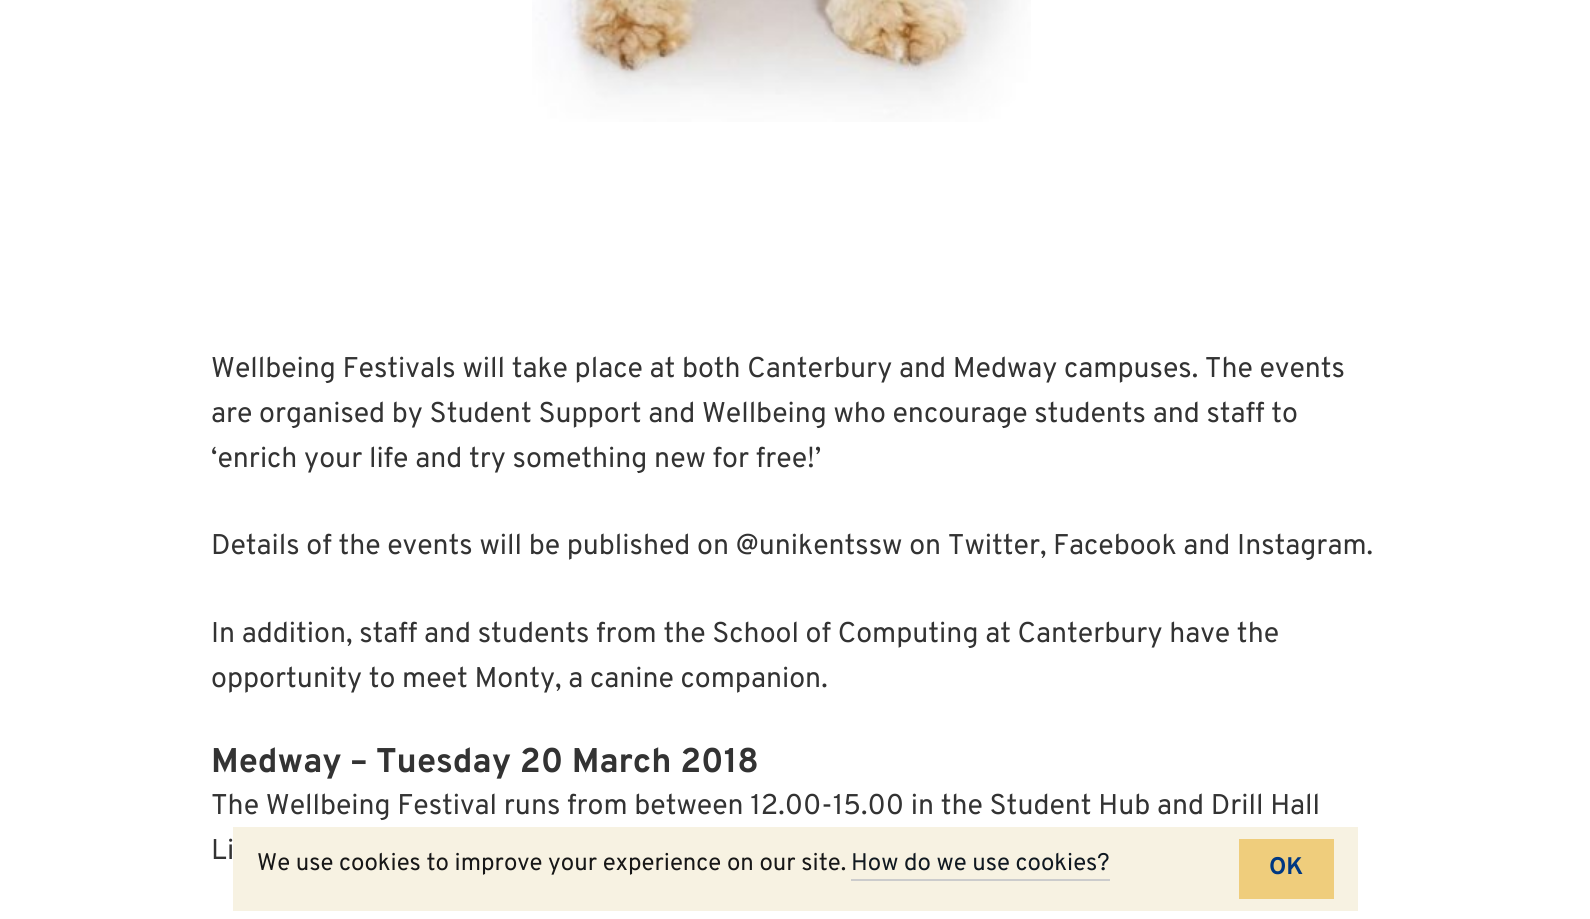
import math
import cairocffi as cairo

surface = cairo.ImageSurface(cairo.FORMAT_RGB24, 1590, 919)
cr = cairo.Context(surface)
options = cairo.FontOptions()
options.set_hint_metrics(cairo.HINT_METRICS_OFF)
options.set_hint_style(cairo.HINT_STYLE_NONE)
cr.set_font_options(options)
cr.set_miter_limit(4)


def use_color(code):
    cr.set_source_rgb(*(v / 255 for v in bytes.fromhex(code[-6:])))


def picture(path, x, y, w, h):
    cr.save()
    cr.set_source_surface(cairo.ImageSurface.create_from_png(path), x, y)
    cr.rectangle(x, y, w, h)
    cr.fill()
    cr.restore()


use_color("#ffffff")
cr.paint()
picture("img1.png", 532, 0, 499, 122)
cr.select_font_face("Overpass")
cr.set_font_size(28.5)
use_color("#333333")
cr.move_to(211, 377)
cr.show_text("Wellbeing Festivals will take place at both Canterbury and Medway campuses. The events")
cr.move_to(211, 422)
cr.show_text("are organised by Student Support and Wellbeing who encourage students and staff to")
cr.move_to(211, 467)
cr.show_text("‘enrich your life and try something new for free!’")
cr.move_to(211, 554)
cr.show_text("Details of the events will be published on @unikentssw on Twitter, Facebook and Instagram.")
cr.move_to(211, 642)
cr.show_text("In addition, staff and students from the School of Computing at Canterbury have the")
cr.move_to(211, 687)
cr.show_text("opportunity to meet Monty, a canine companion.")
cr.select_font_face("Overpass", cairo.FONT_SLANT_NORMAL, cairo.FONT_WEIGHT_BOLD)
cr.set_font_size(34.25)
cr.move_to(211, 772)
cr.show_text("Medway – Tuesday 20 March 2018")
cr.select_font_face("Overpass")
cr.set_font_size(28.5)
cr.move_to(211, 814)
cr.show_text("The Wellbeing Festival runs from between 12.00-15.00 in the Student Hub and Drill Hall")
cr.move_to(211, 859)
cr.show_text("Li")
cr.set_source_rgba(0.969, 0.949, 0.882, 0.95)
cr.rectangle(233, 827, 1125, 84)
cr.fill()
cr.set_font_size(24)
use_color("#171717")
cr.move_to(257, 870)
cr.show_text("We use cookies to improve your experience on our site.")
use_color("#101921")
cr.move_to(851, 870)
cr.show_text("How do we use cookies?")
use_color("#cccccc")
cr.rectangle(851, 879, 259, 2)
cr.fill()
use_color("#efcd7c")
cr.rectangle(1239, 839, 95, 60)
cr.fill()
cr.select_font_face("Overpass", cairo.FONT_SLANT_NORMAL, cairo.FONT_WEIGHT_BOLD)
use_color("#003882")
cr.move_to(1269, 874)
cr.show_text("OK")
surface.write_to_png("result.png")
